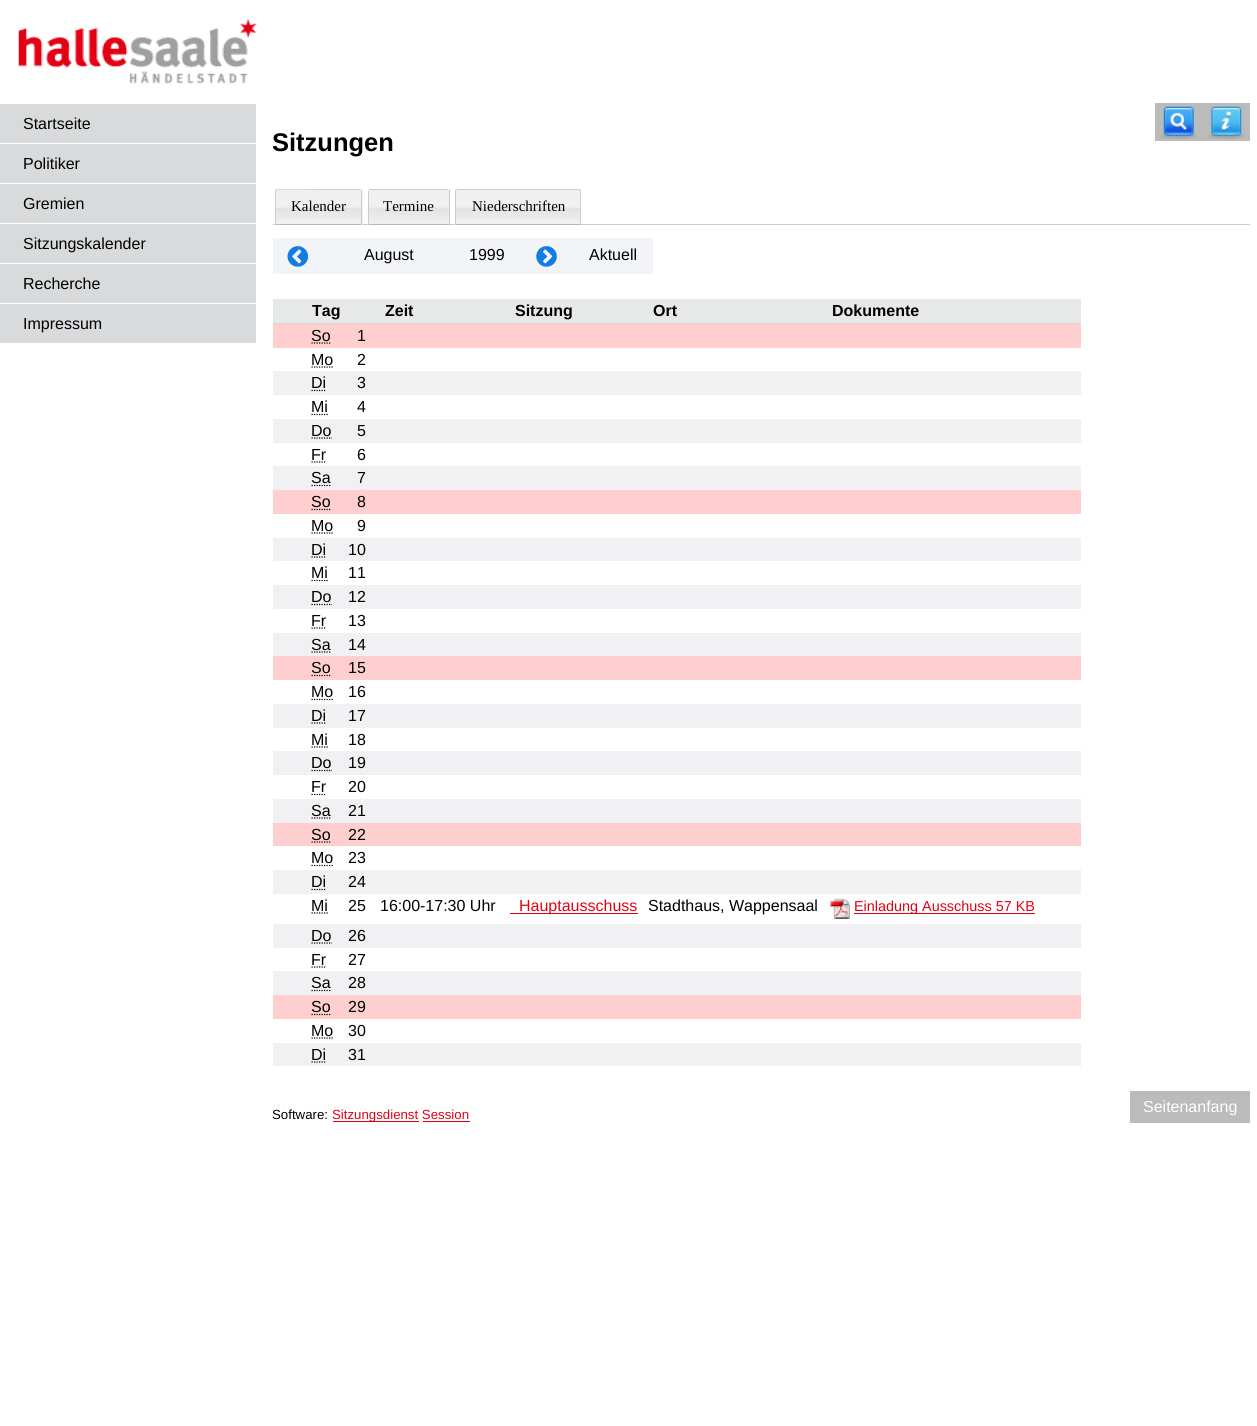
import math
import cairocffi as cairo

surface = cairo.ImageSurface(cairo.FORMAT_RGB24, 1257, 1426)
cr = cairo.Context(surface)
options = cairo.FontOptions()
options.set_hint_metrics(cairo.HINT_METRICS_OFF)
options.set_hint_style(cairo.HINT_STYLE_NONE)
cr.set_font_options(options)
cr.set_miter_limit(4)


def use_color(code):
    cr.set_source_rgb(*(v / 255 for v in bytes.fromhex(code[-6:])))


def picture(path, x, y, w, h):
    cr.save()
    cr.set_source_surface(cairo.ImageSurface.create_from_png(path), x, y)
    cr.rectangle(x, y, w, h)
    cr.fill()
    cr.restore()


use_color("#ffffff")
cr.paint()
picture("img1.png", 18, 18, 239, 66)
use_color("#d8dadb")
cr.rectangle(0, 104, 256, 39)
cr.fill()
cr.select_font_face("Liberation Sans")
cr.set_font_size(16)
use_color("#000000")
cr.move_to(23, 129)
cr.show_text("Startseite")
use_color("#d8dadb")
cr.rectangle(0, 144, 256, 39)
cr.fill()
use_color("#000000")
cr.move_to(23, 169)
cr.show_text("Politiker")
use_color("#d8dadb")
cr.rectangle(0, 184, 256, 39)
cr.fill()
use_color("#000000")
cr.move_to(23, 209)
cr.show_text("Gremien")
use_color("#d8dadb")
cr.rectangle(0, 224, 256, 39)
cr.fill()
use_color("#000000")
cr.move_to(23, 249)
cr.show_text("Sitzungskalender")
use_color("#d8dadb")
cr.rectangle(0, 264, 256, 39)
cr.fill()
use_color("#000000")
cr.move_to(23, 289)
cr.show_text("Recherche")
use_color("#d8dadb")
cr.rectangle(0, 304, 256, 39)
cr.fill()
use_color("#000000")
cr.move_to(23, 329)
cr.show_text("Impressum")
use_color("#bbbbbb")
cr.rectangle(1155, 103, 95, 38)
cr.fill()
picture("img2.png", 1160, 106, 37, 33)
picture("img3.png", 1208, 106, 37, 33)
cr.select_font_face("Liberation Sans", cairo.FONT_SLANT_NORMAL, cairo.FONT_WEIGHT_BOLD)
cr.set_font_size(25.5)
use_color("#000000")
cr.move_to(272, 151)
cr.show_text("Sitzungen")
use_color("#cccccc")
cr.rectangle(273, 224, 977, 1)
cr.fill()
use_color("#f0f0f0")
cr.new_path()
cr.move_to(277.5, 189)
cr.line_to(360.5, 189)
cr.curve_to(362, 189, 363, 190, 363, 191.5)
cr.line_to(363, 225)
cr.line_to(275, 225)
cr.line_to(275, 191.5)
cr.curve_to(275, 190, 276, 189, 277.5, 189)
cr.close_path()
cr.fill()
picture("img4.png", 276, 207, 85, 12)
use_color("#cccccc")
cr.new_path()
cr.move_to(278, 189)
cr.line_to(276, 190)
cr.line_to(277, 190)
cr.curve_to(279, 189, 326, 190, 333, 190)
cr.line_to(360, 190)
cr.line_to(361, 190)
cr.line_to(360, 189)
cr.close_path()
cr.fill()
cr.new_path()
cr.move_to(362, 224.5)
cr.line_to(362, 191)
cr.line_to(361.5, 190)
cr.line_to(361, 190.5)
cr.line_to(361, 223.5)
cr.close_path()
cr.fill()
use_color("#b7b7b7")
cr.new_path()
cr.move_to(362, 225)
cr.line_to(361, 224)
cr.line_to(276, 224)
cr.line_to(275, 225)
cr.close_path()
cr.fill()
use_color("#cccccc")
cr.new_path()
cr.move_to(275, 225)
cr.line_to(276, 224)
cr.line_to(276, 191)
cr.line_to(276.5, 190.5)
cr.line_to(276, 189.5)
cr.curve_to(275.5, 190, 275, 190.5, 275, 191)
cr.close_path()
cr.fill()
cr.select_font_face("Liberation Serif")
cr.set_font_size(15)
use_color("#000000")
cr.move_to(291, 211)
cr.show_text("Kalender")
use_color("#f0f0f0")
cr.new_path()
cr.move_to(370.5, 189)
cr.line_to(447.5, 189)
cr.curve_to(449, 189, 450, 190, 450, 191.5)
cr.line_to(450, 225)
cr.line_to(368, 225)
cr.line_to(368, 191.5)
cr.curve_to(368, 190, 369, 189, 370.5, 189)
cr.close_path()
cr.fill()
picture("img5.png", 367, 207, 83, 18)
use_color("#cccccc")
cr.new_path()
cr.move_to(370, 189)
cr.line_to(369, 190)
cr.line_to(370, 190)
cr.line_to(448, 190)
cr.line_to(449, 190)
cr.line_to(448, 189)
cr.close_path()
cr.fill()
cr.new_path()
cr.move_to(449, 189.5)
cr.line_to(450, 191)
cr.line_to(450, 225)
cr.line_to(449, 224)
cr.line_to(449, 191)
cr.line_to(448.5, 190.5)
cr.close_path()
cr.fill()
use_color("#b7b7b7")
cr.new_path()
cr.move_to(450, 225)
cr.line_to(449, 224)
cr.line_to(369, 224)
cr.line_to(368, 225)
cr.close_path()
cr.fill()
use_color("#cccccc")
cr.new_path()
cr.move_to(368.5, 190)
cr.line_to(368, 191)
cr.line_to(368, 224.5)
cr.line_to(369, 223.5)
cr.line_to(369, 190.5)
cr.close_path()
cr.fill()
use_color("#000000")
cr.move_to(383, 211)
cr.show_text("Termine")
use_color("#f0f0f0")
cr.new_path()
cr.move_to(457.5, 189)
cr.line_to(578.5, 189)
cr.curve_to(580, 189, 581, 190, 581, 191.5)
cr.line_to(581, 225)
cr.line_to(455, 225)
cr.line_to(455, 191.5)
cr.curve_to(455, 190, 456, 189, 457.5, 189)
cr.close_path()
cr.fill()
picture("img6.png", 456, 207, 124, 12)
use_color("#cccccc")
cr.new_path()
cr.move_to(458, 189)
cr.line_to(456, 190)
cr.line_to(457, 190)
cr.line_to(458, 190)
cr.line_to(579, 190)
cr.line_to(580, 190)
cr.line_to(579, 189)
cr.close_path()
cr.fill()
cr.new_path()
cr.move_to(581, 225)
cr.line_to(581, 191)
cr.line_to(580.5, 189.5)
cr.line_to(579.5, 190.5)
cr.line_to(580, 191)
cr.line_to(580, 224)
cr.close_path()
cr.fill()
use_color("#b7b7b7")
cr.new_path()
cr.move_to(581, 225)
cr.line_to(580, 224)
cr.line_to(456, 224)
cr.line_to(455, 225)
cr.close_path()
cr.fill()
use_color("#cccccc")
cr.new_path()
cr.move_to(455, 225)
cr.line_to(456, 224)
cr.line_to(456, 191)
cr.line_to(456.5, 190.5)
cr.line_to(456, 189.5)
cr.curve_to(455.5, 190, 455, 190.5, 455, 191)
cr.close_path()
cr.fill()
use_color("#000000")
cr.move_to(472, 211)
cr.show_text("Niederschriften")
use_color("#f2f4f7")
cr.rectangle(273, 238, 380, 36)
cr.fill()
picture("img7.png", 287, 246, 22, 21)
cr.select_font_face("Liberation Sans")
cr.set_font_size(16)
use_color("#000000")
cr.move_to(364, 260)
cr.show_text("August")
cr.move_to(469, 260)
cr.show_text("1999")
picture("img8.png", 536, 246, 21, 21)
cr.move_to(589, 260)
cr.show_text("Aktuell")
use_color("#e7e8e8")
cr.rectangle(273, 299, 808, 24)
cr.fill()
use_color("#d8d7d7")
cr.rectangle(273, 323, 808, 1)
cr.fill()
cr.select_font_face("Liberation Sans", cairo.FONT_SLANT_NORMAL, cairo.FONT_WEIGHT_BOLD)
use_color("#000000")
cr.move_to(312, 316)
cr.show_text("Tag")
cr.move_to(385, 316)
cr.show_text("Zeit")
cr.move_to(515, 316)
cr.show_text("Sitzung")
cr.move_to(653, 316)
cr.show_text("Ort")
cr.move_to(832, 316)
cr.show_text("Dokumente")
use_color("#ffcfcf")
cr.rectangle(273, 324, 808, 24)
cr.fill()
cr.select_font_face("Liberation Sans")
use_color("#000000")
cr.move_to(311, 341)
cr.show_text("So")
cr.new_path()
cr.move_to(311.5, 343)
cr.line_to(331, 343)
cr.set_line_width(1.2)
cr.set_dash([1.25, 1.25])
cr.stroke()
cr.move_to(357, 341)
cr.show_text("1")
cr.move_to(311, 365)
cr.show_text("Mo")
cr.new_path()
cr.move_to(311.5, 367)
cr.line_to(333.5, 367)
cr.stroke()
cr.move_to(357, 365)
cr.show_text("2")
use_color("#f1f0f2")
cr.rectangle(273, 371, 808, 24)
cr.fill()
use_color("#000000")
cr.move_to(311, 388)
cr.show_text("Di")
cr.new_path()
cr.move_to(311.5, 390.5)
cr.line_to(326.5, 390.5)
cr.stroke()
cr.move_to(357, 388)
cr.show_text("3")
cr.move_to(311, 412)
cr.show_text("Mi")
cr.new_path()
cr.move_to(311.5, 414.5)
cr.line_to(328.5, 414.5)
cr.stroke()
cr.move_to(357, 412)
cr.show_text("4")
use_color("#f1f0f2")
cr.rectangle(273, 419, 808, 24)
cr.fill()
use_color("#000000")
cr.move_to(311, 436)
cr.show_text("Do")
cr.new_path()
cr.move_to(311.5, 438)
cr.line_to(332, 438)
cr.stroke()
cr.move_to(357, 436)
cr.show_text("5")
cr.move_to(311, 460)
cr.show_text("Fr")
cr.new_path()
cr.move_to(311.5, 462)
cr.line_to(326.5, 462)
cr.stroke()
cr.move_to(357, 460)
cr.show_text("6")
use_color("#f1f0f2")
cr.rectangle(273, 466, 808, 24)
cr.fill()
use_color("#000000")
cr.move_to(311, 483)
cr.show_text("Sa")
cr.new_path()
cr.move_to(311.5, 485.5)
cr.line_to(331, 485.5)
cr.stroke()
cr.move_to(357, 483)
cr.show_text("7")
use_color("#ffcfcf")
cr.rectangle(273, 490, 808, 24)
cr.fill()
use_color("#000000")
cr.move_to(311, 507)
cr.show_text("So")
cr.new_path()
cr.move_to(311.5, 509.5)
cr.line_to(331, 509.5)
cr.stroke()
cr.move_to(357, 507)
cr.show_text("8")
cr.move_to(311, 531)
cr.show_text("Mo")
cr.new_path()
cr.move_to(311.5, 533)
cr.line_to(333.5, 533)
cr.stroke()
cr.move_to(357, 531)
cr.show_text("9")
use_color("#f1f0f2")
cr.rectangle(273, 538, 808, 23)
cr.fill()
use_color("#000000")
cr.move_to(311, 555)
cr.show_text("Di")
cr.new_path()
cr.move_to(311.5, 557)
cr.line_to(326.5, 557)
cr.stroke()
cr.move_to(348, 555)
cr.show_text("10")
cr.move_to(311, 578)
cr.show_text("Mi")
cr.new_path()
cr.move_to(311.5, 580.5)
cr.line_to(328.5, 580.5)
cr.stroke()
cr.move_to(348, 578)
cr.show_text("11")
use_color("#f1f0f2")
cr.rectangle(273, 585, 808, 24)
cr.fill()
use_color("#000000")
cr.move_to(311, 602)
cr.show_text("Do")
cr.new_path()
cr.move_to(311.5, 604.5)
cr.line_to(332, 604.5)
cr.stroke()
cr.move_to(348, 602)
cr.show_text("12")
cr.move_to(311, 626)
cr.show_text("Fr")
cr.new_path()
cr.move_to(311.5, 628)
cr.line_to(326.5, 628)
cr.stroke()
cr.move_to(348, 626)
cr.show_text("13")
use_color("#f1f0f2")
cr.rectangle(273, 633, 808, 23)
cr.fill()
use_color("#000000")
cr.move_to(311, 650)
cr.show_text("Sa")
cr.new_path()
cr.move_to(311.5, 652)
cr.line_to(331, 652)
cr.stroke()
cr.move_to(348, 650)
cr.show_text("14")
use_color("#ffcfcf")
cr.rectangle(273, 656, 808, 24)
cr.fill()
use_color("#000000")
cr.move_to(311, 673)
cr.show_text("So")
cr.new_path()
cr.move_to(311.5, 675.5)
cr.line_to(331, 675.5)
cr.stroke()
cr.move_to(348, 673)
cr.show_text("15")
cr.move_to(311, 697)
cr.show_text("Mo")
cr.new_path()
cr.move_to(311.5, 699.5)
cr.line_to(333.5, 699.5)
cr.stroke()
cr.move_to(348, 697)
cr.show_text("16")
use_color("#f1f0f2")
cr.rectangle(273, 704, 808, 24)
cr.fill()
use_color("#000000")
cr.move_to(311, 721)
cr.show_text("Di")
cr.new_path()
cr.move_to(311.5, 723)
cr.line_to(326.5, 723)
cr.stroke()
cr.move_to(348, 721)
cr.show_text("17")
cr.move_to(311, 745)
cr.show_text("Mi")
cr.new_path()
cr.move_to(311.5, 747)
cr.line_to(328.5, 747)
cr.stroke()
cr.move_to(348, 745)
cr.show_text("18")
use_color("#f1f0f2")
cr.rectangle(273, 751, 808, 24)
cr.fill()
use_color("#000000")
cr.move_to(311, 768)
cr.show_text("Do")
cr.new_path()
cr.move_to(311.5, 770.5)
cr.line_to(332, 770.5)
cr.stroke()
cr.move_to(348, 768)
cr.show_text("19")
cr.move_to(311, 792)
cr.show_text("Fr")
cr.new_path()
cr.move_to(311.5, 794.5)
cr.line_to(326.5, 794.5)
cr.stroke()
cr.move_to(348, 792)
cr.show_text("20")
use_color("#f1f0f2")
cr.rectangle(273, 799, 808, 24)
cr.fill()
use_color("#000000")
cr.move_to(311, 816)
cr.show_text("Sa")
cr.new_path()
cr.move_to(311.5, 818)
cr.line_to(331, 818)
cr.stroke()
cr.move_to(348, 816)
cr.show_text("21")
use_color("#ffcfcf")
cr.rectangle(273, 823, 808, 23)
cr.fill()
use_color("#000000")
cr.move_to(311, 840)
cr.show_text("So")
cr.new_path()
cr.move_to(311.5, 842)
cr.line_to(331, 842)
cr.stroke()
cr.move_to(348, 840)
cr.show_text("22")
cr.move_to(311, 863)
cr.show_text("Mo")
cr.new_path()
cr.move_to(311.5, 865.5)
cr.line_to(333.5, 865.5)
cr.stroke()
cr.move_to(348, 863)
cr.show_text("23")
use_color("#f1f0f2")
cr.rectangle(273, 870, 808, 24)
cr.fill()
use_color("#000000")
cr.move_to(311, 887)
cr.show_text("Di")
cr.new_path()
cr.move_to(311.5, 889.5)
cr.line_to(326.5, 889.5)
cr.stroke()
cr.move_to(348, 887)
cr.show_text("24")
cr.move_to(311, 911)
cr.show_text("Mi")
cr.new_path()
cr.move_to(311.5, 913)
cr.line_to(328.5, 913)
cr.stroke()
cr.move_to(348, 911)
cr.show_text("25")
cr.move_to(380, 911)
cr.show_text("16:00-17:30 Uhr")
use_color("#e30013")
cr.rectangle(510, 913, 128, 1)
cr.fill()
cr.move_to(519, 911)
cr.show_text("Hauptausschuss")
use_color("#000000")
cr.move_to(648, 911)
cr.show_text("Stadthaus, Wappensaal")
picture("img9.png", 830, 898, 20, 21)
use_color("#e30013")
cr.rectangle(854, 913, 181, 1)
cr.fill()
cr.set_font_size(14.4)
cr.move_to(854, 911)
cr.show_text("Einladung Ausschuss 57 KB")
use_color("#f1f0f2")
cr.rectangle(273, 924, 808, 24)
cr.fill()
cr.set_font_size(16)
use_color("#000000")
cr.move_to(311, 941)
cr.show_text("Do")
cr.new_path()
cr.move_to(311.5, 943)
cr.line_to(332, 943)
cr.stroke()
cr.move_to(348, 941)
cr.show_text("26")
cr.move_to(311, 965)
cr.show_text("Fr")
cr.new_path()
cr.move_to(311.5, 967)
cr.line_to(326.5, 967)
cr.stroke()
cr.move_to(348, 965)
cr.show_text("27")
use_color("#f1f0f2")
cr.rectangle(273, 971, 808, 24)
cr.fill()
use_color("#000000")
cr.move_to(311, 988)
cr.show_text("Sa")
cr.new_path()
cr.move_to(311.5, 990.5)
cr.line_to(331, 990.5)
cr.stroke()
cr.move_to(348, 988)
cr.show_text("28")
use_color("#ffcfcf")
cr.rectangle(273, 995, 808, 24)
cr.fill()
use_color("#000000")
cr.move_to(311, 1012)
cr.show_text("So")
cr.new_path()
cr.move_to(311.5, 1014.5)
cr.line_to(331, 1014.5)
cr.stroke()
cr.move_to(348, 1012)
cr.show_text("29")
cr.move_to(311, 1036)
cr.show_text("Mo")
cr.new_path()
cr.move_to(311.5, 1038)
cr.line_to(333.5, 1038)
cr.stroke()
cr.move_to(348, 1036)
cr.show_text("30")
use_color("#f1f0f2")
cr.rectangle(273, 1043, 808, 23)
cr.fill()
use_color("#000000")
cr.move_to(311, 1060)
cr.show_text("Di")
cr.new_path()
cr.move_to(311.5, 1062)
cr.line_to(326.5, 1062)
cr.stroke()
cr.move_to(348, 1060)
cr.show_text("31")
cr.set_font_size(13.25)
cr.move_to(272, 1119)
cr.show_text("Software:")
use_color("#e30013")
cr.rectangle(333, 1121, 86, 1)
cr.fill()
cr.move_to(332, 1119)
cr.show_text("Sitzungsdienst Session")
cr.rectangle(423, 1121, 47, 1)
cr.fill()
use_color("#bbbbbb")
cr.rectangle(1130, 1091, 120, 32)
cr.fill()
cr.set_font_size(16)
use_color("#ffffff")
cr.move_to(1143, 1112)
cr.show_text("Seitenanfang")
surface.write_to_png("result.png")
